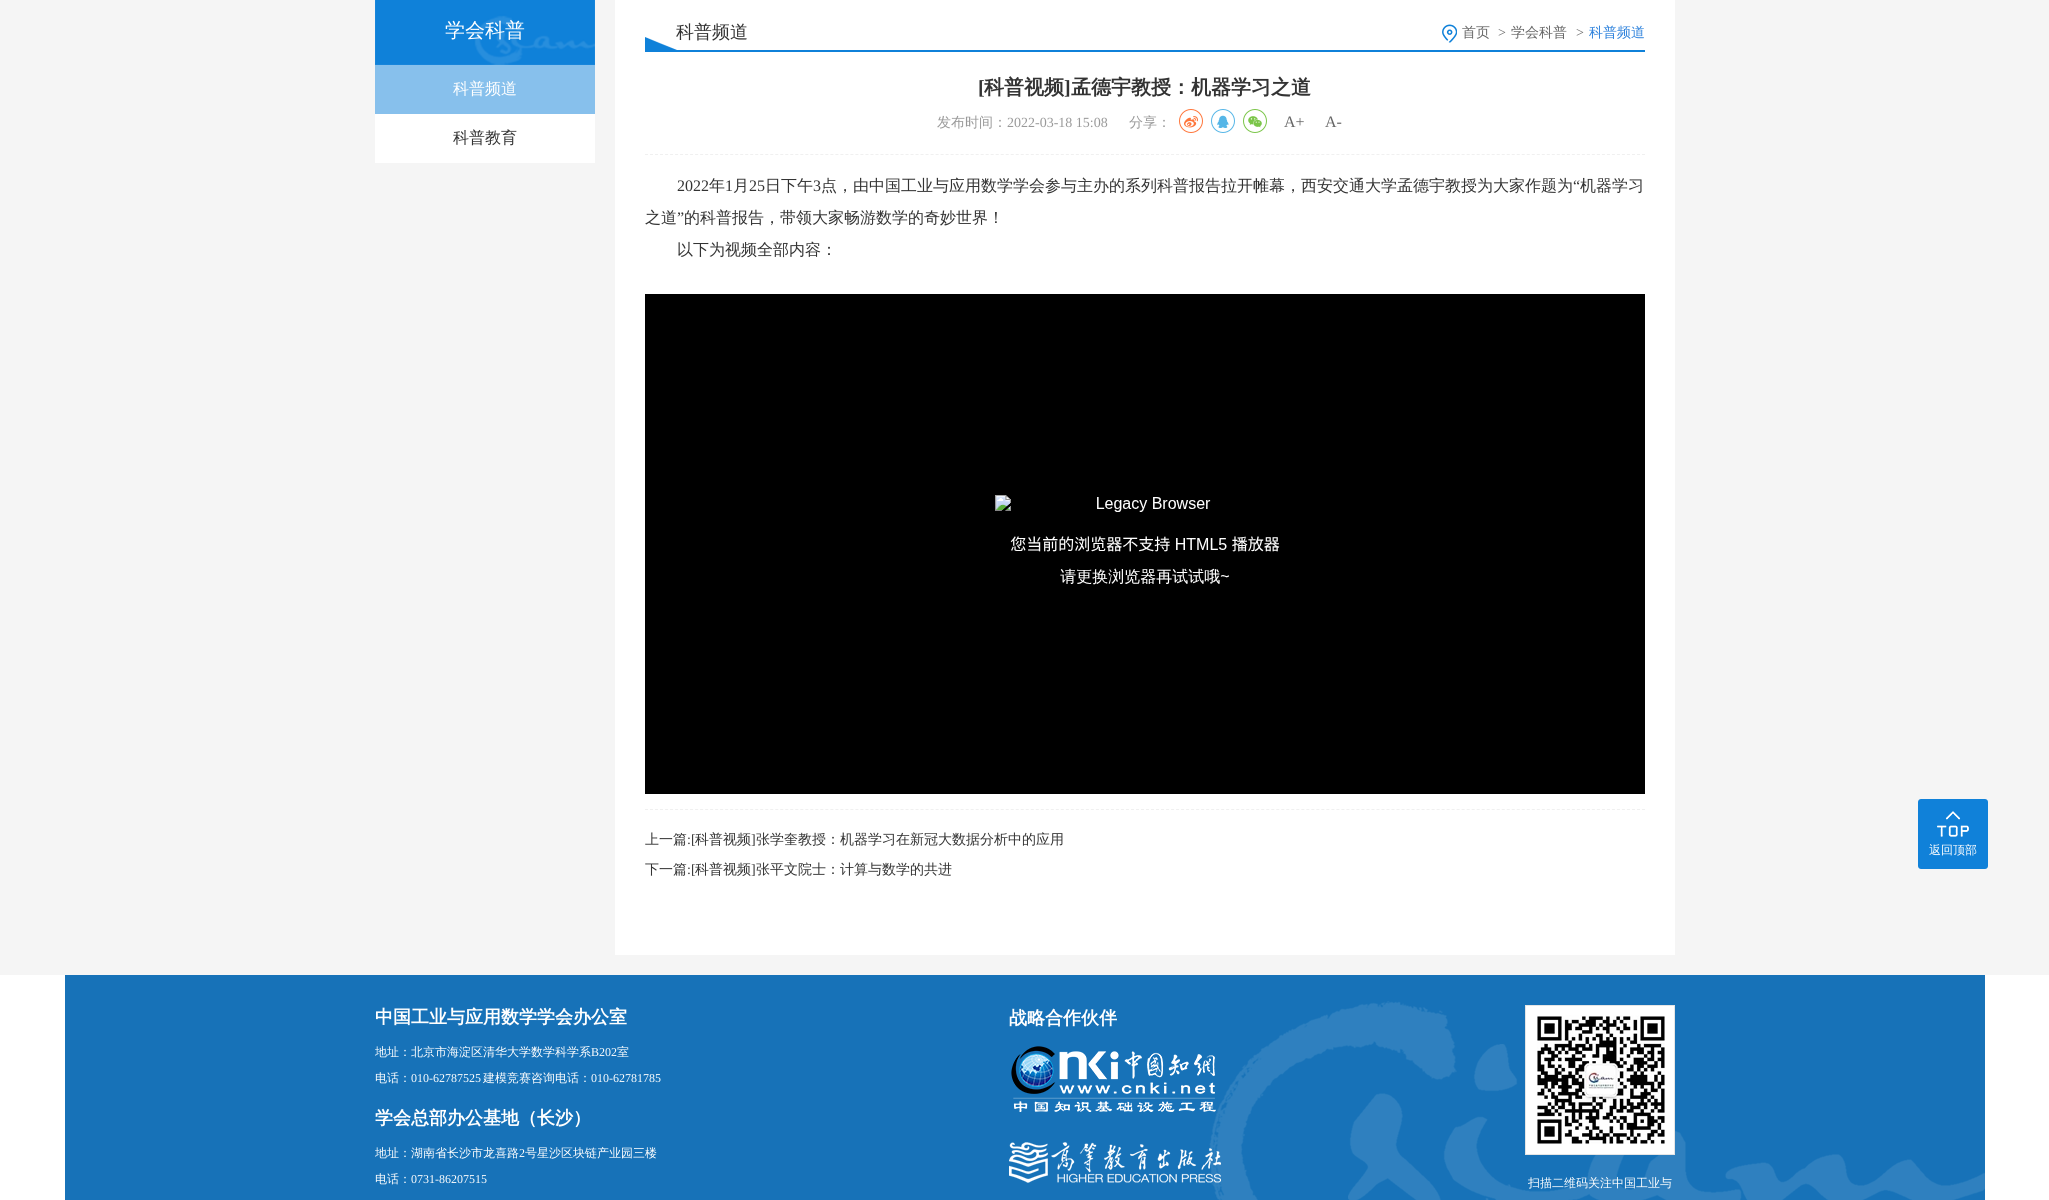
import math
import cairocffi as cairo

surface = cairo.ImageSurface(cairo.FORMAT_RGB24, 2049, 1200)
cr = cairo.Context(surface)
options = cairo.FontOptions()
options.set_hint_metrics(cairo.HINT_METRICS_OFF)
options.set_hint_style(cairo.HINT_STYLE_NONE)
cr.set_font_options(options)
cr.set_miter_limit(4)


def use_color(code):
    cr.set_source_rgb(*(v / 255 for v in bytes.fromhex(code[-6:])))


def round_rect(x, y, w, h, r):
    cr.new_sub_path()
    for i, (u, v) in enumerate([(x + w - r, y + h - r), (x + r, y + h - r), (x + r, y + r), (x + w - r, y + r)]):
        cr.arc(u, v, r, i * math.pi / 2, (i + 1) * math.pi / 2)
    cr.close_path()


def picture(path, x, y, w, h):
    cr.save()
    cr.set_source_surface(cairo.ImageSurface.create_from_png(path), x, y)
    cr.rectangle(x, y, w, h)
    cr.fill()
    cr.restore()


use_color("#ffffff")
cr.paint()
use_color("#f5f5f5")
cr.rectangle(0, 0, 2049, 975)
cr.fill()
picture("img1.png", 375, 0, 220, 65)
cr.select_font_face("WenQuanYi Zen Hei Medium")
cr.set_font_size(20)
use_color("#ffffff")
cr.move_to(445, 37)
cr.show_text("学会科普")
cr.rectangle(375, 114, 220, 49)
cr.fill()
use_color("#87c0ec")
cr.rectangle(375, 65, 220, 49)
cr.fill()
cr.set_font_size(16)
use_color("#ffffff")
cr.move_to(453, 94)
cr.show_text("科普频道")
use_color("#333333")
cr.move_to(453, 143)
cr.show_text("科普教育")
use_color("#ffffff")
cr.rectangle(615, 0, 1060, 955)
cr.fill()
use_color("#0f81d9")
cr.rectangle(645, 50, 1000, 2)
cr.fill()
picture("img2.png", 645, 37, 32, 13)
cr.set_font_size(18)
use_color("#333333")
cr.move_to(676, 38)
cr.show_text("科普频道")
picture("img3.png", 1442, 24, 15, 19)
cr.set_font_size(14)
use_color("#666666")
cr.move_to(1462, 37)
cr.show_text("首页")
cr.select_font_face("Liberation Serif")
cr.move_to(1498, 37)
cr.show_text(">")
cr.select_font_face("WenQuanYi Zen Hei Medium")
cr.move_to(1511, 37)
cr.show_text("学会科普")
cr.select_font_face("Liberation Serif")
cr.move_to(1576, 37)
cr.show_text(">")
cr.select_font_face("WenQuanYi Zen Hei Medium")
use_color("#2e82dc")
cr.move_to(1589, 37)
cr.show_text("科普频道")
cr.new_path()
cr.move_to(645, 154.5)
cr.line_to(1645, 154.5)
use_color("#f0f0f0")
cr.set_line_width(1)
cr.set_dash([3, 2.01])
cr.stroke()
cr.select_font_face("Liberation Serif", cairo.FONT_SLANT_NORMAL, cairo.FONT_WEIGHT_BOLD)
cr.set_font_size(20)
use_color("#333333")
cr.move_to(978, 94)
cr.show_text("[")
cr.select_font_face("WenQuanYi Zen Hei", cairo.FONT_SLANT_NORMAL, cairo.FONT_WEIGHT_BOLD)
cr.move_to(984, 94)
cr.show_text("科普视频")
cr.select_font_face("Liberation Serif", cairo.FONT_SLANT_NORMAL, cairo.FONT_WEIGHT_BOLD)
cr.move_to(1064, 94)
cr.show_text("]")
cr.select_font_face("WenQuanYi Zen Hei", cairo.FONT_SLANT_NORMAL, cairo.FONT_WEIGHT_BOLD)
cr.move_to(1071, 94)
cr.show_text("孟德宇教授：机器学习之道")
cr.select_font_face("WenQuanYi Zen Hei Medium")
cr.set_font_size(14)
use_color("#999999")
cr.move_to(937, 127)
cr.show_text("发布时间：")
cr.select_font_face("Liberation Serif")
cr.move_to(1007, 127)
cr.show_text("2022-03-18 15:08")
cr.select_font_face("WenQuanYi Zen Hei Medium")
cr.move_to(1129, 127)
cr.show_text("分享：")
cr.new_path()
cr.arc(1191, 121, 11.5, 0, 2 * math.pi)
use_color("#ff763b")
cr.set_dash([])
cr.stroke()
picture("img4.png", 1184, 116, 14, 12)
cr.arc(1223, 121, 11.5, 0, 2 * math.pi)
use_color("#56b6e7")
cr.stroke()
picture("img5.png", 1217, 115, 12, 13)
cr.arc(1255, 121, 11.5, 0, 2 * math.pi)
use_color("#7bc549")
cr.stroke()
picture("img6.png", 1248, 116, 14, 12)
cr.select_font_face("Liberation Serif")
cr.set_font_size(16)
use_color("#666666")
cr.move_to(1284, 127)
cr.show_text("A+")
cr.move_to(1325, 127)
cr.show_text("A-")
use_color("#333333")
cr.move_to(677, 191)
cr.show_text("2022")
cr.select_font_face("WenQuanYi Zen Hei Medium")
cr.move_to(709, 191)
cr.show_text("年")
cr.select_font_face("Liberation Serif")
cr.move_to(725, 191)
cr.show_text("1")
cr.select_font_face("WenQuanYi Zen Hei Medium")
cr.move_to(733, 191)
cr.show_text("月")
cr.select_font_face("Liberation Serif")
cr.move_to(749, 191)
cr.show_text("25")
cr.select_font_face("WenQuanYi Zen Hei Medium")
cr.move_to(765, 191)
cr.show_text("日下午")
cr.select_font_face("Liberation Serif")
cr.move_to(813, 191)
cr.show_text("3")
cr.select_font_face("WenQuanYi Zen Hei Medium")
cr.move_to(821, 191)
cr.show_text("点，由中国工业与应用数学学会参与主办的系列科普报告拉开帷幕，西安交通大学孟德宇教授为大家作题为")
cr.select_font_face("Liberation Serif")
cr.move_to(1573, 191)
cr.show_text("“")
cr.select_font_face("WenQuanYi Zen Hei Medium")
cr.move_to(1580, 191)
cr.show_text("机器学习")
cr.move_to(645, 223)
cr.show_text("之道")
cr.select_font_face("Liberation Serif")
cr.move_to(677, 223)
cr.show_text("”")
cr.select_font_face("WenQuanYi Zen Hei Medium")
cr.move_to(684, 223)
cr.show_text("的科普报告，带领大家畅游数学的奇妙世界！")
cr.move_to(677, 255)
cr.show_text("以下为视频全部内容：")
picture("img7.png", 645, 294, 1000, 500)
cr.new_path()
cr.move_to(645, 809.5)
cr.line_to(1645, 809.5)
use_color("#f0f0f0")
cr.set_dash([3, 2.01])
cr.stroke()
cr.set_font_size(14)
use_color("#333333")
cr.move_to(645, 844)
cr.show_text("上一篇")
cr.select_font_face("Liberation Serif")
cr.move_to(687, 844)
cr.show_text(":[")
cr.select_font_face("WenQuanYi Zen Hei Medium")
cr.move_to(695, 844)
cr.show_text("科普视频")
cr.select_font_face("Liberation Serif")
cr.move_to(751, 844)
cr.show_text("]")
cr.select_font_face("WenQuanYi Zen Hei Medium")
cr.move_to(756, 844)
cr.show_text("张学奎教授：机器学习在新冠大数据分析中的应用")
cr.move_to(645, 874)
cr.show_text("下一篇")
cr.select_font_face("Liberation Serif")
cr.move_to(687, 874)
cr.show_text(":[")
cr.select_font_face("WenQuanYi Zen Hei Medium")
cr.move_to(695, 874)
cr.show_text("科普视频")
cr.select_font_face("Liberation Serif")
cr.move_to(751, 874)
cr.show_text("]")
cr.select_font_face("WenQuanYi Zen Hei Medium")
cr.move_to(756, 874)
cr.show_text("张平文院士：计算与数学的共进")
use_color("#1081d9")
round_rect(1918, 799, 70, 70, 3)
cr.fill()
picture("img8.png", 1937, 811, 32, 26)
cr.set_font_size(12)
use_color("#ffffff")
cr.move_to(1929, 854)
cr.show_text("返回顶部")
picture("img9.png", 65, 975, 1920, 225)
cr.select_font_face("WenQuanYi Zen Hei", cairo.FONT_SLANT_NORMAL, cairo.FONT_WEIGHT_BOLD)
cr.set_font_size(18)
cr.move_to(375, 1023)
cr.show_text("中国工业与应用数学学会办公室")
cr.select_font_face("WenQuanYi Zen Hei Medium")
cr.set_font_size(12)
cr.move_to(375, 1056)
cr.show_text("地址：北京市海淀区清华大学数学科学系")
cr.select_font_face("Liberation Serif")
cr.move_to(591, 1056)
cr.show_text("B202")
cr.select_font_face("WenQuanYi Zen Hei Medium")
cr.move_to(617, 1056)
cr.show_text("室")
cr.move_to(375, 1082)
cr.show_text("电话：")
cr.select_font_face("Liberation Serif")
cr.move_to(411, 1082)
cr.show_text("010-62787525")
cr.select_font_face("WenQuanYi Zen Hei Medium")
cr.move_to(483, 1082)
cr.show_text("建模竞赛咨询电话：")
cr.select_font_face("Liberation Serif")
cr.move_to(591, 1082)
cr.show_text("010-62781785")
cr.select_font_face("WenQuanYi Zen Hei", cairo.FONT_SLANT_NORMAL, cairo.FONT_WEIGHT_BOLD)
cr.set_font_size(18)
cr.move_to(375, 1124)
cr.show_text("学会总部办公基地（长沙）")
cr.select_font_face("WenQuanYi Zen Hei Medium")
cr.set_font_size(12)
cr.move_to(375, 1157)
cr.show_text("地址：湖南省长沙市龙喜路")
cr.select_font_face("Liberation Serif")
cr.move_to(519, 1157)
cr.show_text("2")
cr.select_font_face("WenQuanYi Zen Hei Medium")
cr.move_to(525, 1157)
cr.show_text("号星沙区块链产业园三楼")
cr.move_to(375, 1183)
cr.show_text("电话：")
cr.select_font_face("Liberation Serif")
cr.move_to(411, 1183)
cr.show_text("0731-86207515")
cr.select_font_face("WenQuanYi Zen Hei", cairo.FONT_SLANT_NORMAL, cairo.FONT_WEIGHT_BOLD)
cr.set_font_size(18)
cr.move_to(1009, 1024)
cr.show_text("战略合作伙伴")
picture("img10.png", 1011, 1046, 205, 66)
picture("img11.png", 1009, 1142, 212, 41)
cr.rectangle(1525.5, 1005.5, 149, 149)
cr.fill_preserve()
use_color("#e5e5e5")
cr.set_dash([])
cr.stroke()
picture("img12.png", 1537, 1015, 128, 129)
cr.select_font_face("WenQuanYi Zen Hei Medium")
cr.set_font_size(12)
use_color("#ffffff")
cr.move_to(1528, 1187)
cr.show_text("扫描二维码关注中国工业与")
surface.write_to_png("result.png")
